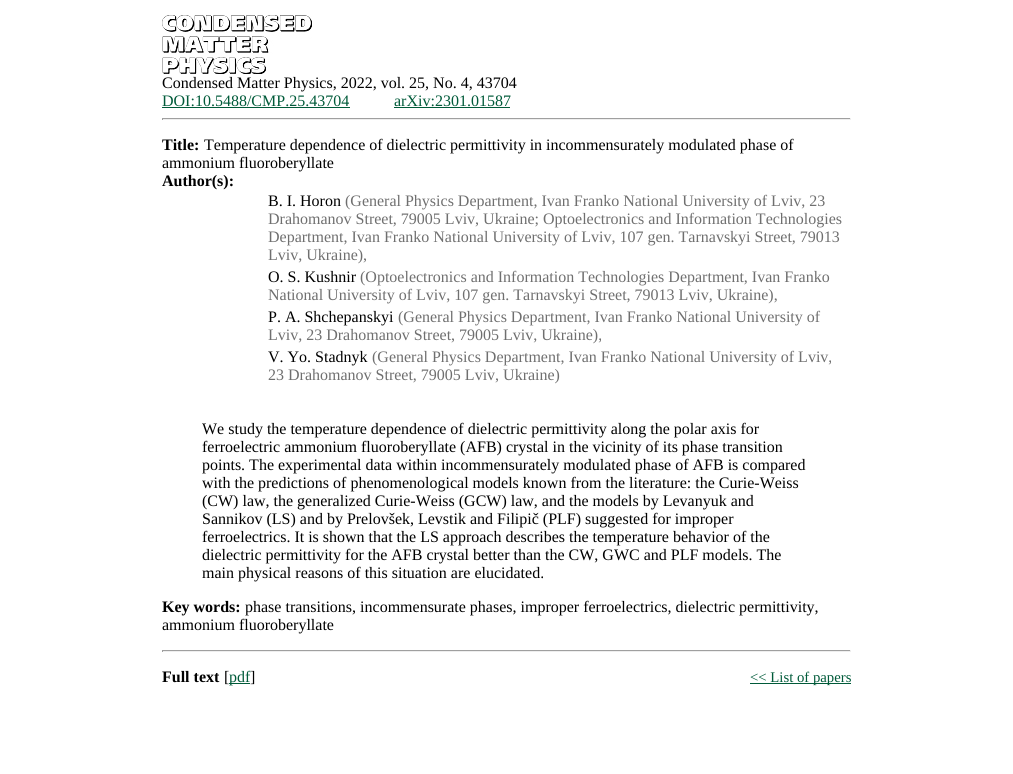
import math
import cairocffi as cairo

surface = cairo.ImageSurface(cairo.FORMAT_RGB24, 1013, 774)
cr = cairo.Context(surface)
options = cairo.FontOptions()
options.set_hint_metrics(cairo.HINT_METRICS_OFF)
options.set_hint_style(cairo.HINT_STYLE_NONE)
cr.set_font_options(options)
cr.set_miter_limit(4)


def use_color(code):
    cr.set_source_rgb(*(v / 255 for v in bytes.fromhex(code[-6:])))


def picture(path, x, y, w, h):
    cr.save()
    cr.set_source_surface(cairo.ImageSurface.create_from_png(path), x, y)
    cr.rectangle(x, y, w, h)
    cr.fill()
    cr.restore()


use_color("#ffffff")
cr.paint()
picture("img1.png", 162, 15, 150, 59)
cr.select_font_face("Liberation Serif")
cr.set_font_size(16)
use_color("#000000")
cr.move_to(162, 88)
cr.show_text("Condensed Matter Physics, 2022, vol. 25, No. 4, 43704")
use_color("#005a39")
cr.move_to(162, 106)
cr.show_text("DOI:10.5488/CMP.25.43704")
cr.rectangle(162, 107, 188, 1)
cr.fill()
cr.move_to(394, 106)
cr.show_text("arXiv:2301.01587")
cr.rectangle(394, 107, 116, 1)
cr.fill()
use_color("#9f9f9f")
cr.rectangle(162, 118, 689, 1)
cr.fill()
use_color("#eeeeee")
cr.rectangle(850, 118, 1, 2)
cr.fill()
cr.rectangle(162, 119, 689, 1)
cr.fill()
use_color("#9f9f9f")
cr.rectangle(162, 118, 1, 2)
cr.fill()
cr.select_font_face("Liberation Serif", cairo.FONT_SLANT_NORMAL, cairo.FONT_WEIGHT_BOLD)
use_color("#000000")
cr.move_to(162, 150)
cr.show_text("Title:")
cr.select_font_face("Liberation Serif")
cr.move_to(204, 150)
cr.show_text("Temperature dependence of dielectric permittivity in incommensurately modulated phase of")
cr.move_to(162, 168)
cr.show_text("ammonium fluoroberyllate")
cr.select_font_face("Liberation Serif", cairo.FONT_SLANT_NORMAL, cairo.FONT_WEIGHT_BOLD)
cr.move_to(162, 186)
cr.show_text("Author(s):")
cr.select_font_face("Liberation Serif")
cr.move_to(268, 206)
cr.show_text("B. I. Horon")
use_color("#6f6f6f")
cr.move_to(345, 206)
cr.show_text("(General Physics Department, Ivan Franko National University of Lviv, 23")
cr.move_to(268, 224)
cr.show_text("Drahomanov Street, 79005 Lviv, Ukraine; Optoelectronics and Information Technologies")
cr.move_to(268, 242)
cr.show_text("Department, Ivan Franko National University of Lviv, 107 gen. Tarnavskyi Street, 79013")
cr.move_to(268, 260)
cr.show_text("Lviv, Ukraine),")
use_color("#000000")
cr.move_to(268, 282)
cr.show_text("O. S. Kushnir")
use_color("#6f6f6f")
cr.move_to(360, 282)
cr.show_text("(Optoelectronics and Information Technologies Department, Ivan Franko")
cr.move_to(268, 300)
cr.show_text("National University of Lviv, 107 gen. Tarnavskyi Street, 79013 Lviv, Ukraine),")
use_color("#000000")
cr.move_to(268, 322)
cr.show_text("P. A. Shchepanskyi")
use_color("#6f6f6f")
cr.move_to(398, 322)
cr.show_text("(General Physics Department, Ivan Franko National University of")
cr.move_to(268, 340)
cr.show_text("Lviv, 23 Drahomanov Street, 79005 Lviv, Ukraine),")
use_color("#000000")
cr.move_to(268, 362)
cr.show_text("V. Yo. Stadnyk")
use_color("#6f6f6f")
cr.move_to(372, 362)
cr.show_text("(General Physics Department, Ivan Franko National University of Lviv,")
cr.move_to(268, 380)
cr.show_text("23 Drahomanov Street, 79005 Lviv, Ukraine)")
use_color("#000000")
cr.move_to(202, 434)
cr.show_text("We study the temperature dependence of dielectric permittivity along the polar axis for")
cr.move_to(202, 452)
cr.show_text("ferroelectric ammonium fluoroberyllate (AFB) crystal in the vicinity of its phase transition")
cr.move_to(202, 470)
cr.show_text("points. The experimental data within incommensurately modulated phase of AFB is compared")
cr.move_to(202, 488)
cr.show_text("with the predictions of phenomenological models known from the literature: the Curie-Weiss")
cr.move_to(202, 506)
cr.show_text("(CW) law, the generalized Curie-Weiss (GCW) law, and the models by Levanyuk and")
cr.move_to(202, 524)
cr.show_text("Sannikov (LS) and by Prelovšek, Levstik and Filipič (PLF) suggested for improper")
cr.move_to(202, 542)
cr.show_text("ferroelectrics. It is shown that the LS approach describes the temperature behavior of the")
cr.move_to(202, 560)
cr.show_text("dielectric permittivity for the AFB crystal better than the CW, GWC and PLF models. The")
cr.move_to(202, 578)
cr.show_text("main physical reasons of this situation are elucidated.")
cr.select_font_face("Liberation Serif", cairo.FONT_SLANT_NORMAL, cairo.FONT_WEIGHT_BOLD)
cr.move_to(162, 612)
cr.show_text("Key words:")
cr.select_font_face("Liberation Serif")
cr.move_to(245, 612)
cr.show_text("phase transitions, incommensurate phases, improper ferroelectrics, dielectric permittivity,")
cr.move_to(162, 630)
cr.show_text("ammonium fluoroberyllate")
use_color("#9f9f9f")
cr.rectangle(162, 650, 689, 1)
cr.fill()
use_color("#eeeeee")
cr.rectangle(850, 650, 1, 2)
cr.fill()
cr.rectangle(162, 651, 689, 1)
cr.fill()
use_color("#9f9f9f")
cr.rectangle(162, 650, 1, 2)
cr.fill()
cr.select_font_face("Liberation Serif", cairo.FONT_SLANT_NORMAL, cairo.FONT_WEIGHT_BOLD)
use_color("#000000")
cr.move_to(162, 682)
cr.show_text("Full text")
cr.select_font_face("Liberation Serif")
cr.move_to(224, 682)
cr.show_text("[")
use_color("#005a39")
cr.rectangle(229, 683, 21, 1)
cr.fill()
cr.move_to(229, 682)
cr.show_text("pdf")
use_color("#000000")
cr.move_to(250, 682)
cr.show_text("]")
use_color("#005a39")
cr.rectangle(750, 683, 101, 1)
cr.fill()
cr.set_font_size(14.75)
cr.move_to(750, 682)
cr.show_text("<< List of papers")
surface.write_to_png("result.png")
